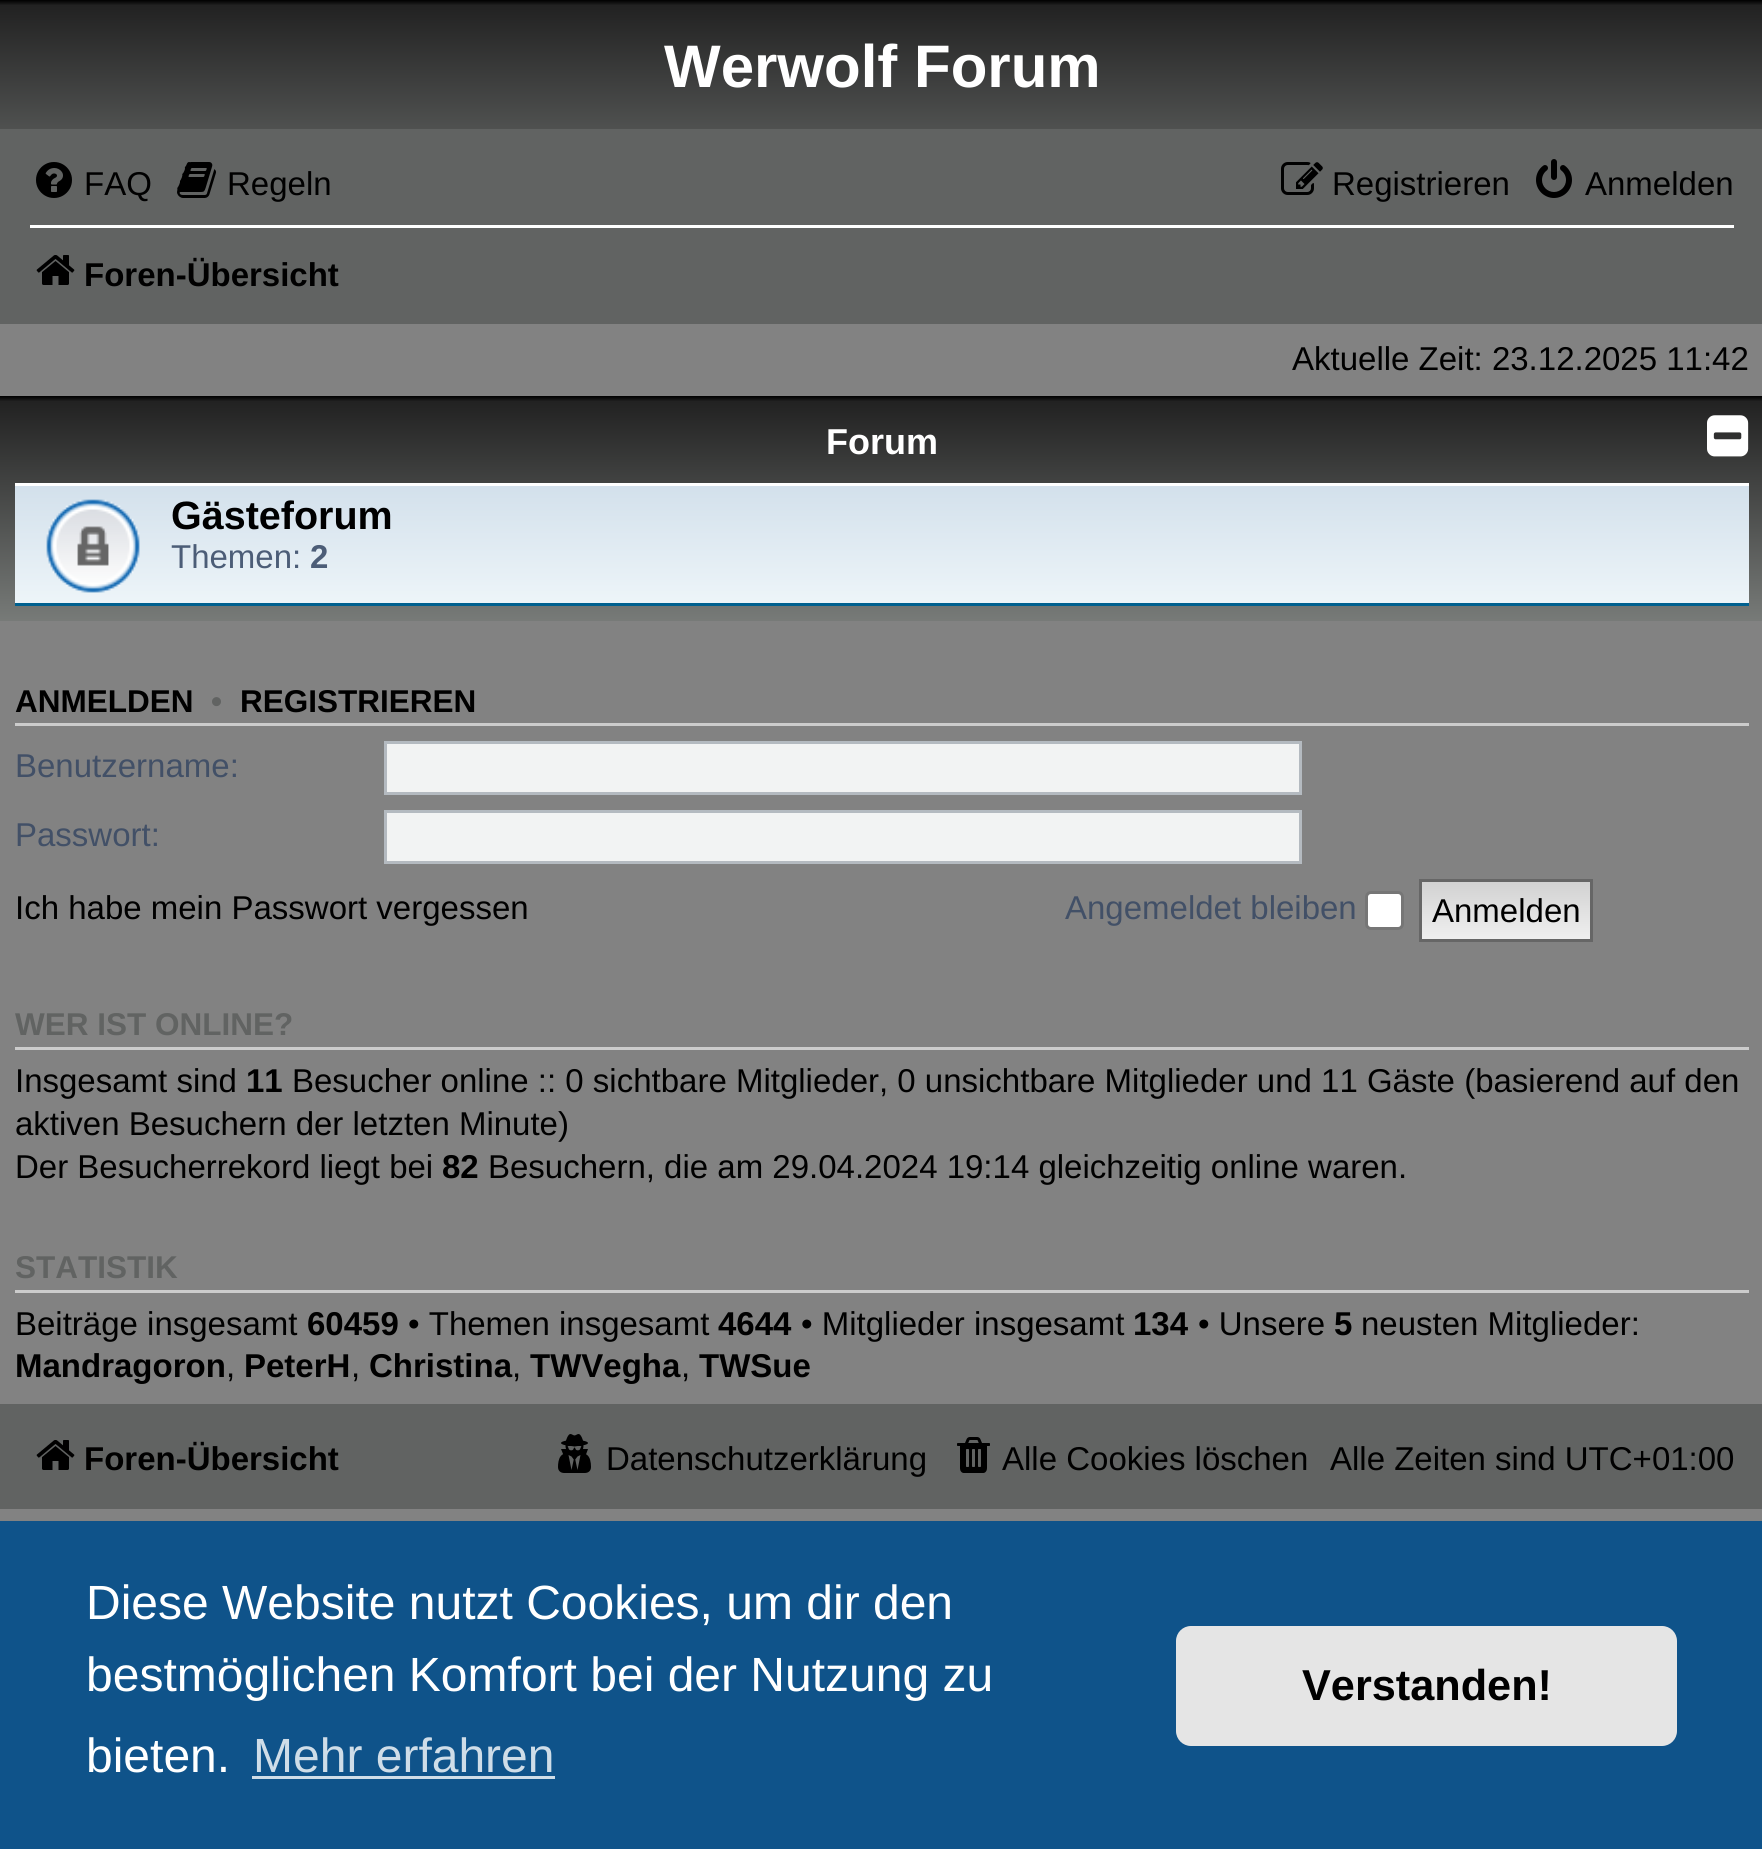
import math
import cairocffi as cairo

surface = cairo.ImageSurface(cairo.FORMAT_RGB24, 1762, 1849)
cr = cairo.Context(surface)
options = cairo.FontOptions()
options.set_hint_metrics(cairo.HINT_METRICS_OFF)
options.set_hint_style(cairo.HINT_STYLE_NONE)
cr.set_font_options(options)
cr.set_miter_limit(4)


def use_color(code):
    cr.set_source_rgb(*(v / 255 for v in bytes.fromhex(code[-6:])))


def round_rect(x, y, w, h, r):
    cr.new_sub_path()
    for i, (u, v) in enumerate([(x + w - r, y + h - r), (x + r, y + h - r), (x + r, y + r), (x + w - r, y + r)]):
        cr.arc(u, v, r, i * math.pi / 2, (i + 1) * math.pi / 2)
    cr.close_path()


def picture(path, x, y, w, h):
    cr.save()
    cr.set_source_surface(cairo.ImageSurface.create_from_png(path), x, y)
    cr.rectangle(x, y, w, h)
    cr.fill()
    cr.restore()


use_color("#828282")
cr.paint()
gradient = cairo.LinearGradient(882, 0, 882, 276)
gradient.add_color_stop_rgba(0, 0, 0, 0, 1)
gradient.add_color_stop_rgba(0.02, 0.133, 0.133, 0.133, 1)
gradient.add_color_stop_rgba(1, 0.522, 0.537, 0.529, 1)
cr.set_source(gradient)
cr.rectangle(0, 0, 1762, 129)
cr.fill()
cr.select_font_face("Liberation Sans", cairo.FONT_SLANT_NORMAL, cairo.FONT_WEIGHT_BOLD)
cr.set_font_size(60)
use_color("#ffffff")
cr.move_to(664, 87)
cr.show_text("Werwolf Forum")
use_color("#616362")
cr.rectangle(0, 129, 1762, 195)
cr.fill()
picture("img1.png", 36, 162, 36, 36)
cr.select_font_face("Liberation Sans")
cr.set_font_size(33)
use_color("#000000")
cr.move_to(84, 195)
cr.show_text("FAQ")
picture("img2.png", 177, 162, 39, 36)
cr.move_to(227, 195)
cr.show_text("Regeln")
picture("img3.png", 1281, 162, 42, 33)
cr.move_to(1332, 195)
cr.show_text("Registrieren")
picture("img4.png", 1536, 159, 36, 39)
cr.move_to(1585, 195)
cr.show_text("Anmelden")
use_color("#ffffff")
cr.rectangle(30, 225, 1704, 3)
cr.fill()
picture("img5.png", 36, 255, 39, 30)
cr.select_font_face("Liberation Sans", cairo.FONT_SLANT_NORMAL, cairo.FONT_WEIGHT_BOLD)
use_color("#000000")
cr.move_to(84, 286)
cr.show_text("Foren-Übersicht")
cr.select_font_face("Liberation Sans")
cr.move_to(1292, 370)
cr.show_text("Aktuelle Zeit: 23.12.2025 11:42")
gradient = cairo.LinearGradient(882, 396, 882, 672)
gradient.add_color_stop_rgba(0, 0, 0, 0, 1)
gradient.add_color_stop_rgba(0.02, 0.133, 0.133, 0.133, 1)
gradient.add_color_stop_rgba(1, 0.545, 0.561, 0.549, 1)
cr.set_source(gradient)
cr.rectangle(0, 396, 1762, 225)
cr.fill()
cr.select_font_face("Liberation Sans", cairo.FONT_SLANT_NORMAL, cairo.FONT_WEIGHT_BOLD)
cr.set_font_size(36)
use_color("#ffffff")
cr.move_to(826, 454)
cr.show_text("Forum")
picture("img6.png", 1707, 415, 42, 42)
gradient = cairo.LinearGradient(882, 483, 882, 606)
gradient.add_color_stop_rgba(0, 0.824, 0.878, 0.922, 1)
gradient.add_color_stop_rgba(1, 0.933, 0.961, 0.976, 1)
cr.set_source(gradient)
cr.rectangle(15, 486, 1734, 117)
cr.fill()
use_color("#ffffff")
cr.rectangle(15, 483, 1734, 3)
cr.fill()
use_color("#00608f")
cr.rectangle(15, 603, 1734, 3)
cr.fill()
picture("img7.png", 46, 499, 94, 94)
cr.set_font_size(39.5)
use_color("#000000")
cr.move_to(171, 529)
cr.show_text("Gästeforum")
cr.select_font_face("Liberation Sans")
cr.set_font_size(33)
use_color("#4c5d77")
cr.move_to(171, 568)
cr.show_text("Themen:")
cr.select_font_face("Liberation Sans", cairo.FONT_SLANT_NORMAL, cairo.FONT_WEIGHT_BOLD)
cr.move_to(310, 568)
cr.show_text("2")
use_color("#cccccc")
cr.rectangle(15, 723, 1734, 3)
cr.fill()
cr.set_font_size(31.5)
use_color("#000000")
cr.move_to(15, 712)
cr.show_text("ANMELDEN")
use_color("#616362")
cr.move_to(211, 712)
cr.show_text("•")
use_color("#000000")
cr.move_to(240, 712)
cr.show_text("REGISTRIEREN")
cr.select_font_face("Liberation Sans")
cr.set_font_size(33)
use_color("#425067")
cr.move_to(15, 777)
cr.show_text("Benutzername:")
use_color("#f2f3f3")
cr.rectangle(385.5, 742.5, 915, 51)
cr.fill_preserve()
use_color("#b4bac0")
cr.set_line_width(3)
cr.stroke()
use_color("#425067")
cr.move_to(15, 846)
cr.show_text("Passwort:")
use_color("#f2f3f3")
cr.rectangle(385.5, 811.5, 915, 51)
cr.fill_preserve()
use_color("#b4bac0")
cr.stroke()
use_color("#000000")
cr.move_to(15, 919)
cr.show_text("Ich habe mein Passwort vergessen")
use_color("#425067")
cr.move_to(1065, 919)
cr.show_text("Angemeldet bleiben")
use_color("#ffffff")
round_rect(1366.5, 892.5, 36, 36, 4.5)
cr.fill_preserve()
use_color("#767676")
cr.stroke()
gradient = cairo.LinearGradient(1506, 882, 1506, 939)
gradient.add_color_stop_rgba(0, 0.824, 0.824, 0.824, 1)
gradient.add_color_stop_rgba(1, 0.937, 0.937, 0.937, 1)
cr.set_source(gradient)
cr.rectangle(1422, 882, 168, 57)
cr.fill()
cr.rectangle(1420.5, 880.5, 171, 60)
use_color("#666666")
cr.stroke()
use_color("#000000")
cr.move_to(1432, 922)
cr.show_text("Anmelden")
use_color("#cccccc")
cr.rectangle(15, 1047, 1734, 3)
cr.fill()
cr.select_font_face("Liberation Sans", cairo.FONT_SLANT_NORMAL, cairo.FONT_WEIGHT_BOLD)
cr.set_font_size(31.5)
use_color("#616362")
cr.move_to(15, 1035)
cr.show_text("WER IST ONLINE?")
cr.select_font_face("Liberation Sans")
cr.set_font_size(33)
use_color("#000000")
cr.move_to(15, 1092)
cr.show_text("Insgesamt sind")
cr.select_font_face("Liberation Sans", cairo.FONT_SLANT_NORMAL, cairo.FONT_WEIGHT_BOLD)
cr.move_to(246, 1092)
cr.show_text("11")
cr.select_font_face("Liberation Sans")
cr.move_to(292, 1092)
cr.show_text("Besucher online :: 0 sichtbare Mitglieder, 0 unsichtbare Mitglieder und 11 Gäste (basierend auf den")
cr.move_to(15, 1135)
cr.show_text("aktiven Besuchern der letzten Minute)")
cr.move_to(15, 1178)
cr.show_text("Der Besucherrekord liegt bei")
cr.select_font_face("Liberation Sans", cairo.FONT_SLANT_NORMAL, cairo.FONT_WEIGHT_BOLD)
cr.move_to(442, 1178)
cr.show_text("82")
cr.select_font_face("Liberation Sans")
cr.move_to(488, 1178)
cr.show_text("Besuchern, die am 29.04.2024 19:14 gleichzeitig online waren.")
use_color("#cccccc")
cr.rectangle(15, 1290, 1734, 3)
cr.fill()
cr.select_font_face("Liberation Sans", cairo.FONT_SLANT_NORMAL, cairo.FONT_WEIGHT_BOLD)
cr.set_font_size(31.5)
use_color("#616362")
cr.move_to(15, 1278)
cr.show_text("STATISTIK")
cr.select_font_face("Liberation Sans")
cr.set_font_size(33)
use_color("#000000")
cr.move_to(15, 1335)
cr.show_text("Beiträge insgesamt")
cr.select_font_face("Liberation Sans", cairo.FONT_SLANT_NORMAL, cairo.FONT_WEIGHT_BOLD)
cr.move_to(307, 1335)
cr.show_text("60459")
cr.select_font_face("Liberation Sans")
cr.move_to(408, 1335)
cr.show_text("• Themen insgesamt")
cr.select_font_face("Liberation Sans", cairo.FONT_SLANT_NORMAL, cairo.FONT_WEIGHT_BOLD)
cr.move_to(718, 1335)
cr.show_text("4644")
cr.select_font_face("Liberation Sans")
cr.move_to(801, 1335)
cr.show_text("• Mitglieder insgesamt")
cr.select_font_face("Liberation Sans", cairo.FONT_SLANT_NORMAL, cairo.FONT_WEIGHT_BOLD)
cr.move_to(1133, 1335)
cr.show_text("134")
cr.select_font_face("Liberation Sans")
cr.move_to(1198, 1335)
cr.show_text("• Unsere")
cr.select_font_face("Liberation Sans", cairo.FONT_SLANT_NORMAL, cairo.FONT_WEIGHT_BOLD)
cr.move_to(1334, 1335)
cr.show_text("5")
cr.select_font_face("Liberation Sans")
cr.move_to(1361, 1335)
cr.show_text("neusten Mitglieder:")
cr.select_font_face("Liberation Sans", cairo.FONT_SLANT_NORMAL, cairo.FONT_WEIGHT_BOLD)
cr.move_to(15, 1377)
cr.show_text("Mandragoron")
cr.select_font_face("Liberation Sans")
cr.move_to(226, 1377)
cr.show_text(",")
cr.select_font_face("Liberation Sans", cairo.FONT_SLANT_NORMAL, cairo.FONT_WEIGHT_BOLD)
cr.move_to(244, 1377)
cr.show_text("PeterH")
cr.select_font_face("Liberation Sans")
cr.move_to(351, 1377)
cr.show_text(",")
cr.select_font_face("Liberation Sans", cairo.FONT_SLANT_NORMAL, cairo.FONT_WEIGHT_BOLD)
cr.move_to(369, 1377)
cr.show_text("Christina")
cr.select_font_face("Liberation Sans")
cr.move_to(512, 1377)
cr.show_text(",")
cr.select_font_face("Liberation Sans", cairo.FONT_SLANT_NORMAL, cairo.FONT_WEIGHT_BOLD)
cr.move_to(530, 1377)
cr.show_text("TWVegha")
cr.select_font_face("Liberation Sans")
cr.move_to(681, 1377)
cr.show_text(",")
cr.select_font_face("Liberation Sans", cairo.FONT_SLANT_NORMAL, cairo.FONT_WEIGHT_BOLD)
cr.move_to(699, 1377)
cr.show_text("TWSue")
use_color("#616362")
cr.rectangle(0, 1404, 1762, 105)
cr.fill()
picture("img5.png", 36, 1440, 39, 30)
use_color("#000000")
cr.move_to(84, 1470)
cr.show_text("Foren-Übersicht")
picture("img8.png", 558, 1434, 33, 39)
cr.select_font_face("Liberation Sans")
cr.move_to(606, 1470)
cr.show_text("Datenschutzerklärung")
picture("img9.png", 957, 1437, 33, 36)
cr.move_to(1002, 1470)
cr.show_text("Alle Cookies löschen")
cr.move_to(1330, 1470)
cr.show_text("Alle Zeiten sind UTC+01:00")
use_color("#0f538a")
cr.rectangle(0, 1521, 1762, 328)
cr.fill()
cr.set_font_size(48)
use_color("#ffffff")
cr.move_to(86, 1619)
cr.show_text("Diese Website nutzt Cookies, um dir den")
cr.move_to(86, 1691)
cr.show_text("bestmöglichen Komfort bei der Nutzung zu")
cr.move_to(86, 1772)
cr.show_text("bieten.")
use_color("#cfdde8")
cr.move_to(253, 1772)
cr.show_text("Mehr erfahren")
cr.rectangle(252, 1776, 303, 3)
cr.fill()
use_color("#e5e5e5")
round_rect(1176, 1626, 501, 120, 15)
cr.fill()
cr.select_font_face("Liberation Sans", cairo.FONT_SLANT_NORMAL, cairo.FONT_WEIGHT_BOLD)
cr.set_font_size(43.25)
use_color("#000000")
cr.move_to(1302, 1700)
cr.show_text("Verstanden!")
surface.write_to_png("result.png")
